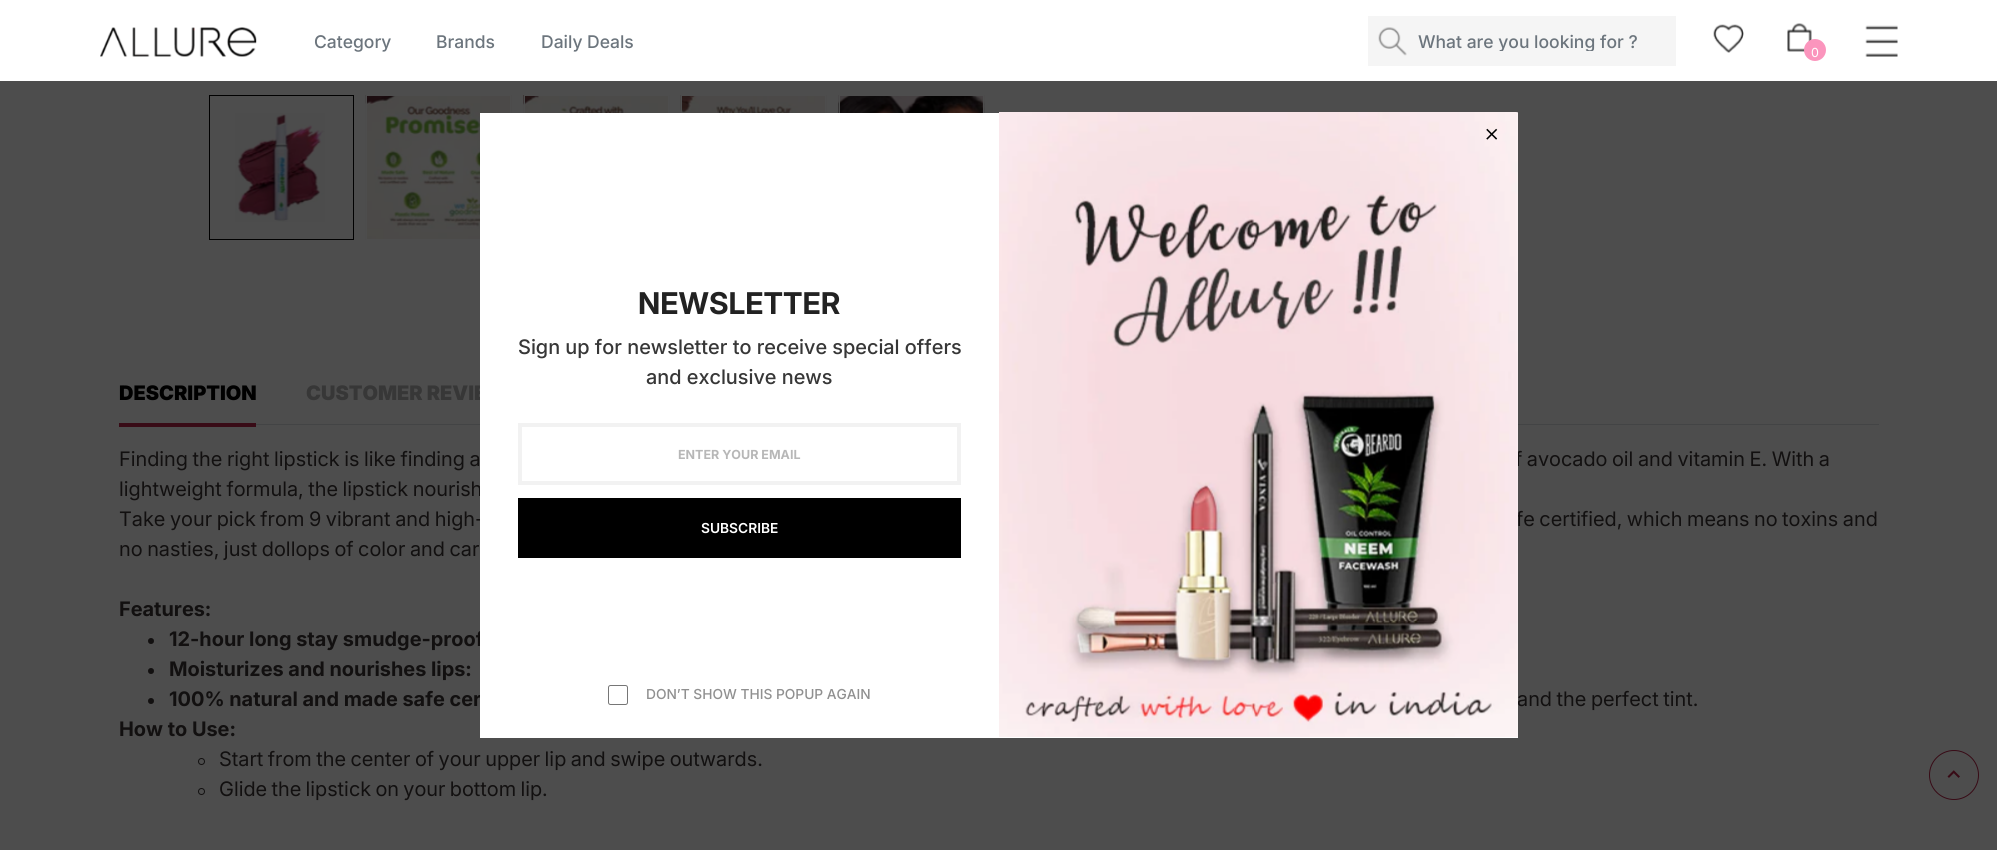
import math
import cairocffi as cairo

surface = cairo.ImageSurface(cairo.FORMAT_RGB24, 1997, 850)
cr = cairo.Context(surface)
options = cairo.FontOptions()
options.set_hint_metrics(cairo.HINT_METRICS_OFF)
options.set_hint_style(cairo.HINT_STYLE_NONE)
cr.set_font_options(options)
cr.set_miter_limit(4)


def use_color(code):
    cr.set_source_rgb(*(v / 255 for v in bytes.fromhex(code[-6:])))


def spaced_text(x, y, s, letter, word):
    cr.move_to(x, y)
    for ch in s:
        cr.show_text(ch)
        cr.rel_move_to(letter + word * (ch == ' '), 0)


def round_rect(x, y, w, h, r):
    cr.new_sub_path()
    for i, (u, v) in enumerate([(x + w - r, y + h - r), (x + r, y + h - r), (x + r, y + r), (x + w - r, y + r)]):
        cr.arc(u, v, r, i * math.pi / 2, (i + 1) * math.pi / 2)
    cr.close_path()


def picture(path, x, y, w, h):
    cr.save()
    cr.set_source_surface(cairo.ImageSurface.create_from_png(path), x, y)
    cr.rectangle(x, y, w, h)
    cr.fill()
    cr.restore()


use_color("#4d4d4d")
cr.paint()
use_color("#ffffff")
cr.rectangle(0, 0, 1997, 81)
cr.fill()
picture("img1.png", 100, 27, 157, 30)
cr.select_font_face("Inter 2 Medium")
cr.set_font_size(17.5)
use_color("#6c757d")
cr.move_to(314, 48)
cr.show_text("Category")
cr.move_to(436, 48)
cr.show_text("Brands")
cr.move_to(541, 48)
cr.show_text("Daily Deals")
use_color("#f5f5f5")
cr.rectangle(1368, 16, 308, 50)
cr.fill()
picture("img2.png", 1378, 27, 29, 29)
cr.save()
cr.rectangle(1418, 30, 245, 21)
cr.clip()
use_color("#6c757d")
cr.move_to(1418, 48)
cr.show_text("What are you looking for ?")
cr.restore()
picture("img3.png", 1713, 24, 31, 29)
picture("img4.png", 1865, 25, 33, 32)
picture("img5.png", 1787, 23, 25, 29)
use_color("#fb95bd")
cr.arc(1815, 50, 11, 0, 2 * math.pi)
cr.fill()
cr.select_font_face("Inter 2")
cr.set_font_size(12.5)
use_color("#ffffff")
cr.move_to(1811, 57)
cr.show_text("0")
picture("img6.png", 235, 113, 90, 109)
cr.rectangle(209.5, 95.5, 144, 144)
use_color("#000000")
cr.set_line_width(1)
cr.stroke()
picture("img7.png", 365, 95, 147, 145)
cr.rectangle(366.5, 95.5, 144, 144)
use_color("#4d4d4d")
cr.stroke()
picture("img8.png", 523, 95, 147, 18)
cr.rectangle(524.5, 95.5, 144, 144)
cr.stroke()
picture("img9.png", 680, 95, 147, 18)
cr.rectangle(681.5, 95.5, 144, 144)
cr.stroke()
picture("img10.png", 838, 95, 147, 18)
cr.rectangle(839.5, 95.5, 144, 144)
cr.stroke()
use_color("#434445")
cr.rectangle(256, 424, 1623, 1)
cr.fill()
cr.select_font_face("Inter Black")
cr.set_font_size(20)
use_color("#000000")
cr.move_to(119, 400)
cr.show_text("DESCRIPTION")
use_color("#380b16")
cr.rectangle(119, 423, 137, 4)
cr.fill()
use_color("#373737")
cr.move_to(306, 400)
cr.show_text("CUSTOMER REVIE")
cr.select_font_face("Inter")
use_color("#121010")
spaced_text(119, 466, "Finding the right lipstick is like finding a", 0, -1)
spaced_text(1515, 466, "f avocado oil and vitamin E. With a", 0, -1)
spaced_text(119, 496, "lightweight formula, the lipstick nourish", 0, -1)
spaced_text(119, 526, "Take your pick from 9 vibrant and high-", 0, -1)
spaced_text(1516, 526, "fe certified, which means no toxins and", 0, -1)
spaced_text(119, 556, "no nasties, just dollops of color and car", 0, -1)
cr.select_font_face("Inter", cairo.FONT_SLANT_NORMAL, cairo.FONT_WEIGHT_BOLD)
cr.move_to(119, 616)
cr.show_text("Features:")
cr.new_path()
cr.arc(151, 641, 3, 0, 2 * math.pi)
cr.fill()
cr.move_to(169, 646)
cr.show_text("12-hour long stay smudge-proof")
cr.new_path()
cr.arc(151, 671, 3, 0, 2 * math.pi)
cr.fill()
cr.move_to(169, 676)
cr.show_text("Moisturizes and nourishes lips:")
cr.new_path()
cr.arc(151, 701, 3, 0, 2 * math.pi)
cr.fill()
cr.move_to(169, 706)
cr.show_text("100% natural and made safe cer")
cr.select_font_face("Inter")
spaced_text(1517, 706, "and the perfect tint.", 0, -1)
cr.select_font_face("Inter", cairo.FONT_SLANT_NORMAL, cairo.FONT_WEIGHT_BOLD)
cr.move_to(119, 736)
cr.show_text("How to Use:")
cr.new_path()
cr.arc(201.5, 761.5, 3, 0, 2 * math.pi)
cr.stroke()
cr.select_font_face("Inter")
spaced_text(219, 766, "Start from the center of your upper lip and swipe outwards.", 0, -1.1)
cr.new_path()
cr.arc(201.5, 791.5, 3, 0, 2 * math.pi)
cr.stroke()
spaced_text(219, 796, "Glide the lipstick on your bottom lip.", 0, -1.25)
use_color("#ffffff")
cr.rectangle(480, 113, 1038, 625)
cr.fill()
picture("img11.png", 999, 112, 519, 625)
picture("img12.png", 1486, 128, 12, 12)
cr.select_font_face("Inter 2", cairo.FONT_SLANT_NORMAL, cairo.FONT_WEIGHT_BOLD)
cr.set_font_size(30)
use_color("#222222")
cr.move_to(638, 314)
cr.show_text("NEWSLETTER")
cr.select_font_face("Inter Medium")
cr.set_font_size(20)
use_color("#373737")
cr.move_to(518, 354)
cr.show_text("Sign up for newsletter to receive special offers")
cr.move_to(646, 384)
cr.show_text("and exclusive news")
cr.rectangle(520, 425, 439, 58)
use_color("#f2f2f2")
cr.set_line_width(4)
cr.stroke()
cr.select_font_face("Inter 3", cairo.FONT_SLANT_NORMAL, cairo.FONT_WEIGHT_BOLD)
cr.set_font_size(12.5)
use_color("#b7b7b7")
cr.move_to(678, 459)
cr.show_text("ENTER YOUR EMAIL")
use_color("#000000")
cr.rectangle(518, 498, 443, 60)
cr.fill()
cr.select_font_face("Inter SemiBold")
cr.set_font_size(13.75)
use_color("#ffffff")
cr.move_to(701, 533)
cr.show_text("SUBSCRIBE")
round_rect(608.5, 685.5, 19, 19, 2)
use_color("#767676")
cr.set_line_width(1)
cr.stroke()
cr.select_font_face("Inter 2 Medium")
use_color("#909090")
cr.move_to(646, 699)
cr.show_text("DON’T SHOW THIS POPUP AGAIN")
cr.new_path()
cr.arc(1954, 775, 24.5, 0, 2 * math.pi)
use_color("#380b16")
cr.stroke()
picture("img13.png", 1947, 770, 13, 8)
surface.write_to_png("result.png")
